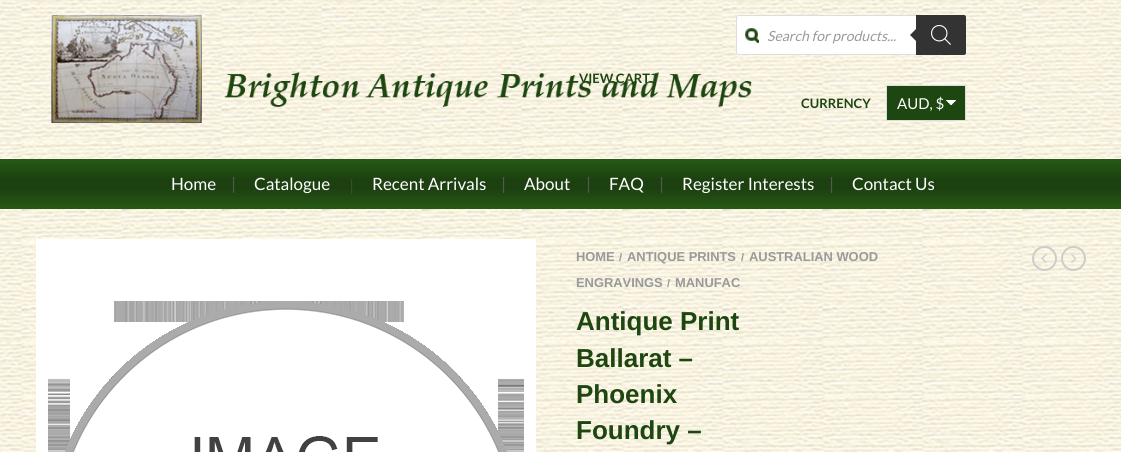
import math
import cairocffi as cairo

surface = cairo.ImageSurface(cairo.FORMAT_RGB24, 1121, 452)
cr = cairo.Context(surface)
options = cairo.FontOptions()
options.set_hint_metrics(cairo.HINT_METRICS_OFF)
options.set_hint_style(cairo.HINT_STYLE_NONE)
cr.set_font_options(options)
cr.set_miter_limit(4)


def use_color(code):
    cr.set_source_rgb(*(v / 255 for v in bytes.fromhex(code[-6:])))


def round_rect(x, y, w, h, r):
    cr.new_sub_path()
    for i, (u, v) in enumerate([(x + w - r, y + h - r), (x + r, y + h - r), (x + r, y + r), (x + w - r, y + r)]):
        cr.arc(u, v, r, i * math.pi / 2, (i + 1) * math.pi / 2)
    cr.close_path()


def picture(path, x, y, w, h):
    cr.save()
    cr.set_source_surface(cairo.ImageSurface.create_from_png(path), x, y)
    cr.rectangle(x, y, w, h)
    cr.fill()
    cr.restore()


use_color("#ffffff")
cr.paint()
picture("img1.png", 0, 0, 1121, 452)
picture("img2.png", 51, 15, 701, 108)
use_color("#ffffff")
round_rect(736, 15, 230, 40, 3)
cr.fill()
picture("img3.png", 745, 28, 14, 15)
round_rect(736.5, 15.5, 229, 39, 2.5)
use_color("#dddddd")
cr.set_line_width(1)
cr.stroke()
cr.select_font_face("Lato", cairo.FONT_SLANT_ITALIC)
cr.set_font_size(14)
use_color("#999999")
cr.move_to(767, 41)
cr.show_text("Search for products...")
use_color("#333333")
cr.new_path()
cr.move_to(916, 15)
cr.line_to(964, 15)
cr.curve_to(965, 15, 966, 16, 966, 17)
cr.line_to(966, 53)
cr.curve_to(966, 54, 965, 55, 964, 55)
cr.line_to(916, 55)
cr.close_path()
cr.fill()
cr.new_path()
cr.move_to(918, 27)
cr.line_to(918, 43)
cr.line_to(910, 35)
cr.close_path()
cr.fill()
picture("img4.png", 931, 25, 20, 20)
cr.select_font_face("Lato", cairo.FONT_SLANT_NORMAL, cairo.FONT_WEIGHT_BOLD)
cr.set_font_size(13)
use_color("#1e4611")
cr.move_to(579, 83)
cr.show_text("VIEW CART")
cr.move_to(801, 108)
cr.show_text("CURRENCY")
cr.rectangle(887, 86, 78, 34)
cr.fill()
picture("img5.png", 946, 100, 10, 5)
cr.rectangle(886.5, 85.5, 79, 35)
use_color("#dddddd")
cr.stroke()
cr.select_font_face("Lato")
cr.set_font_size(15)
use_color("#ffffff")
cr.move_to(897, 109)
cr.show_text("AUD, $")
gradient = cairo.LinearGradient(561, 159, 561, 209)
gradient.add_color_stop_rgba(0, 0.153, 0.353, 0.086, 1)
gradient.add_color_stop_rgba(0.42, 0.11, 0.251, 0.063, 1)
gradient.add_color_stop_rgba(0.59, 0.11, 0.251, 0.063, 1)
gradient.add_color_stop_rgba(1, 0.153, 0.353, 0.086, 1)
cr.set_source(gradient)
cr.rectangle(0, 159, 1121, 50)
cr.fill()
cr.set_font_size(17)
use_color("#ffffff")
cr.move_to(171, 190)
cr.show_text("Home")
use_color("#52594f")
cr.move_to(231, 190)
cr.show_text("|")
use_color("#ffffff")
cr.move_to(254, 190)
cr.show_text("Catalogue")
cr.select_font_face("Liberation Serif")
use_color("#42523c")
cr.move_to(350, 191)
cr.show_text("|")
cr.select_font_face("Lato")
use_color("#ffffff")
cr.move_to(372, 190)
cr.show_text("Recent Arrivals")
use_color("#52594f")
cr.move_to(501, 190)
cr.show_text("|")
use_color("#ffffff")
cr.move_to(524, 190)
cr.show_text("About")
use_color("#52594f")
cr.move_to(586, 190)
cr.show_text("|")
use_color("#ffffff")
cr.move_to(609, 190)
cr.show_text("FAQ")
use_color("#52594f")
cr.move_to(659, 190)
cr.show_text("|")
use_color("#ffffff")
cr.move_to(682, 190)
cr.show_text("Register Interests")
use_color("#52594f")
cr.move_to(829, 190)
cr.show_text("|")
use_color("#ffffff")
cr.move_to(852, 190)
cr.show_text("Contact Us")
picture("img6.png", 36, 239, 500, 213)
cr.select_font_face("Liberation Sans", cairo.FONT_SLANT_NORMAL, cairo.FONT_WEIGHT_BOLD)
cr.set_font_size(12.9)
use_color("#999999")
cr.move_to(576, 261)
cr.show_text("HOME")
cr.set_font_size(11)
cr.move_to(619, 261)
cr.show_text("/")
cr.set_font_size(12.9)
cr.move_to(627, 261)
cr.show_text("ANTIQUE PRINTS")
cr.set_font_size(11)
cr.move_to(741, 261)
cr.show_text("/")
cr.set_font_size(12.9)
cr.move_to(749, 261)
cr.show_text("AUSTRALIAN WOOD")
cr.move_to(576, 287)
cr.show_text("ENGRAVINGS")
cr.set_font_size(11)
cr.move_to(667, 287)
cr.show_text("/")
cr.set_font_size(12.9)
cr.move_to(675, 287)
cr.show_text("MANUFAC")
cr.set_font_size(26)
use_color("#1e4611")
cr.move_to(576, 330)
cr.show_text("Antique Print")
cr.move_to(576, 367)
cr.show_text("Ballarat –")
cr.move_to(576, 403)
cr.show_text("Phoenix")
cr.move_to(576, 439)
cr.show_text("Foundry –")
cr.new_path()
cr.arc(1044.5, 258.5, 11.5, 0, 2 * math.pi)
use_color("#cccccc")
cr.set_line_width(2)
cr.stroke()
picture("img7.png", 1041, 254, 6, 9)
cr.arc(1073.5, 258.5, 11.5, 0, 2 * math.pi)
cr.stroke()
picture("img8.png", 1071, 254, 6, 9)
surface.write_to_png("result.png")
